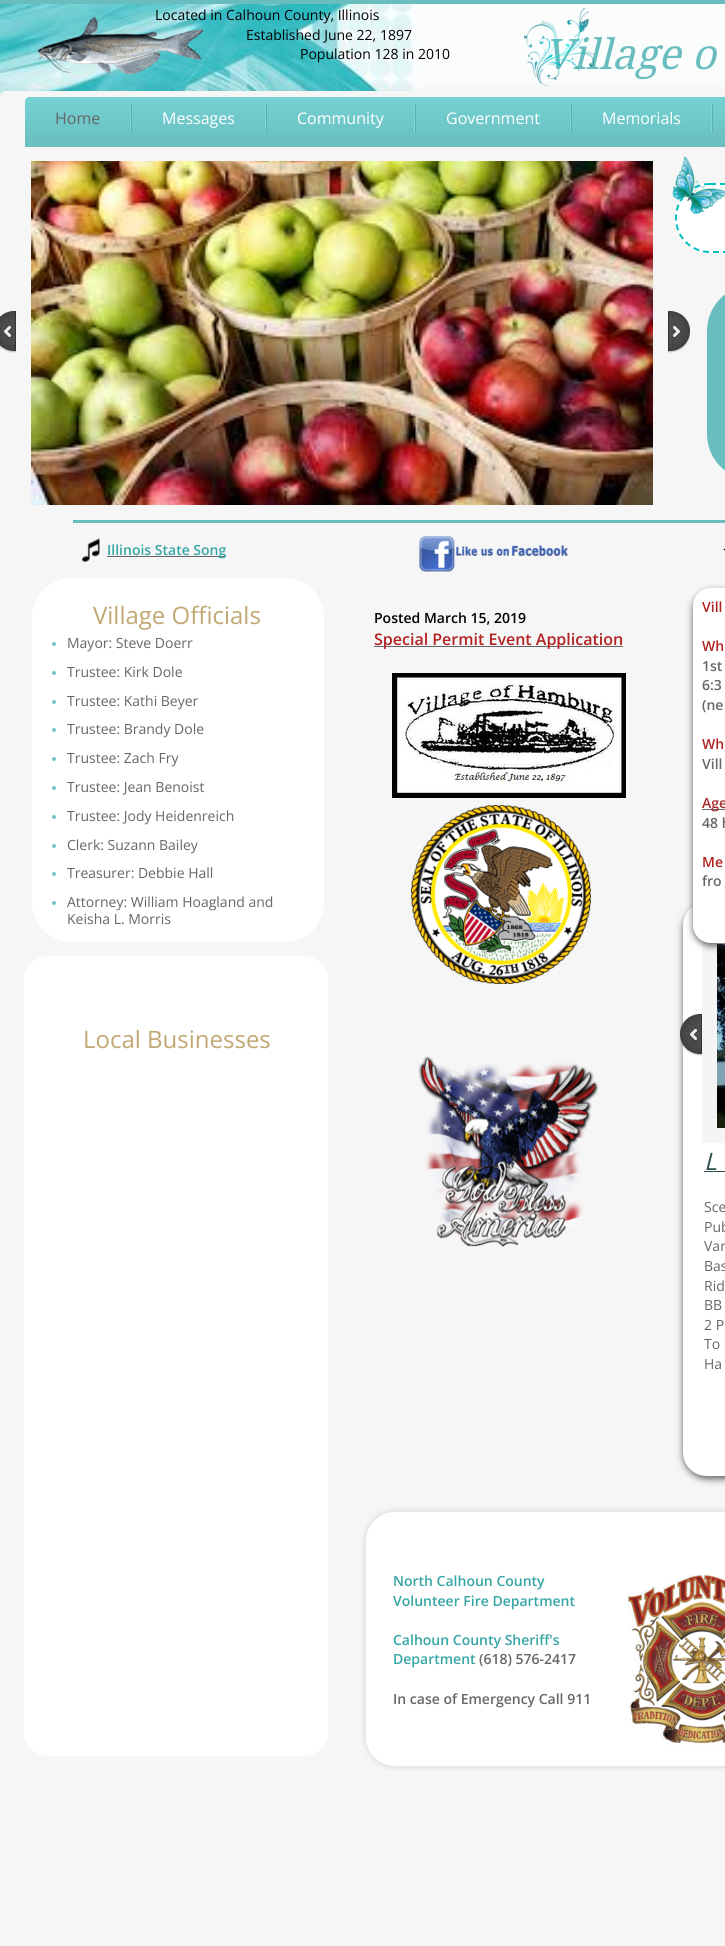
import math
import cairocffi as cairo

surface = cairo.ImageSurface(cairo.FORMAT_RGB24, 725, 1946)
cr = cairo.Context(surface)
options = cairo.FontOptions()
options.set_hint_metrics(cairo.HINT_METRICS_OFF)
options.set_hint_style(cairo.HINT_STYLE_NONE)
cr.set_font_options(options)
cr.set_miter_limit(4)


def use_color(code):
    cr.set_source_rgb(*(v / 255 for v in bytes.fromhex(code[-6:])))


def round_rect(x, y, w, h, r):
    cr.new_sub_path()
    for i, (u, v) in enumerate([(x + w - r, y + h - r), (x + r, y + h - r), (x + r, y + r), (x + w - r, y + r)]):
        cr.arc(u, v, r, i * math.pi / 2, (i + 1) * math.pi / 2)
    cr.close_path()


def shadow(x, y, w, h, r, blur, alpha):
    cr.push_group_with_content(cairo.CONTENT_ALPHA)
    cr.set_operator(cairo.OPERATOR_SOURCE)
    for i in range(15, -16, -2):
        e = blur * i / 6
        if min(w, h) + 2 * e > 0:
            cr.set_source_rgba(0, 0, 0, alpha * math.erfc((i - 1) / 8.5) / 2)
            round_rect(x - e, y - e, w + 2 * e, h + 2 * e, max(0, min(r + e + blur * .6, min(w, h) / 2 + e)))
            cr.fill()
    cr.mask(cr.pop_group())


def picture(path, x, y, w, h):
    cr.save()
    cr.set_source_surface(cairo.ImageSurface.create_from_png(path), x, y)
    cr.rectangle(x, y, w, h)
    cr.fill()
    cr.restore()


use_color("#ffffff")
cr.paint()
picture("img1.png", 0, 4, 725, 93)
use_color("#69bdbe")
cr.rectangle(0, 0, 725, 4)
cr.fill()
use_color("#000000")
shadow(0, 101, 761, 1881, 6, 10, 0.2)
use_color("#f6f6f6")
cr.new_path()
cr.move_to(6, 91)
cr.line_to(725, 91)
cr.line_to(725, 1946)
cr.line_to(0, 1946)
cr.line_to(0, 97)
cr.curve_to(0, 93.5, 2.5, 91, 6, 91)
cr.close_path()
cr.fill()
cr.select_font_face("Open Sans")
cr.set_font_size(14)
use_color("#000000")
cr.move_to(155, 20)
cr.show_text("Located in Calhoun County, Illinois")
picture("img2.png", 36, 16, 168, 59)
cr.move_to(246, 40)
cr.show_text("Established June 22, 1897")
cr.move_to(300, 59)
cr.show_text("Population 128 in 2010")
cr.select_font_face("Droid Serif", cairo.FONT_SLANT_ITALIC)
cr.set_font_size(42)
use_color("#69bdbe")
cr.move_to(544, 69)
cr.show_text("Village o")
picture("img3.png", 524, 8, 70, 78)
gradient = cairo.LinearGradient(490, 97, 490, 147)
gradient.add_color_stop_rgba(0, 0.455, 0.82, 0.824, 1)
gradient.add_color_stop_rgba(0.51, 0.435, 0.784, 0.788, 1)
gradient.add_color_stop_rgba(1, 0.412, 0.741, 0.745, 1)
cr.set_source(gradient)
cr.new_path()
cr.move_to(30, 97)
cr.line_to(725, 97)
cr.line_to(725, 147)
cr.line_to(25, 147)
cr.line_to(25, 102)
cr.curve_to(25, 99, 27, 97, 30, 97)
cr.close_path()
cr.fill()
use_color("#7bd6d7")
cr.rectangle(130, 104, 1, 29)
cr.fill()
cr.select_font_face("Open Sans")
cr.set_font_size(16)
use_color("#666666")
cr.move_to(55, 124)
cr.show_text("Home")
use_color("#7bd6d7")
cr.rectangle(265, 104, 1, 29)
cr.fill()
use_color("#5cafb0")
cr.rectangle(131, 104, 1, 29)
cr.fill()
use_color("#ffffff")
cr.move_to(162, 124)
cr.show_text("Messages")
use_color("#7bd6d7")
cr.rectangle(414, 104, 1, 29)
cr.fill()
use_color("#5cafb0")
cr.rectangle(266, 104, 1, 29)
cr.fill()
use_color("#ffffff")
cr.move_to(297, 124)
cr.show_text("Community")
use_color("#7bd6d7")
cr.rectangle(570, 104, 1, 29)
cr.fill()
use_color("#5cafb0")
cr.rectangle(415, 104, 1, 29)
cr.fill()
use_color("#ffffff")
cr.move_to(446, 124)
cr.show_text("Government")
use_color("#7bd6d7")
cr.rectangle(711, 104, 1, 29)
cr.fill()
use_color("#5cafb0")
cr.rectangle(571, 104, 1, 29)
cr.fill()
use_color("#ffffff")
cr.move_to(602, 124)
cr.show_text("Memorials")
use_color("#5cafb0")
cr.rectangle(712, 104, 1, 29)
cr.fill()
picture("img4.png", 0, 311, 16, 42)
picture("img5.png", 31, 161, 622, 344)
picture("img6.png", 668, 311, 22, 42)
use_color("#ffffff")
cr.new_path()
cr.move_to(710, 183)
cr.line_to(725, 183)
cr.line_to(725, 253)
cr.line_to(710, 253)
cr.curve_to(690.5, 253, 675, 237.5, 675, 218)
cr.curve_to(675, 198.5, 690.5, 183, 710, 183)
cr.close_path()
cr.fill()
cr.new_path()
cr.move_to(710, 184)
cr.line_to(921, 184)
cr.curve_to(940, 184, 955, 199, 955, 218)
cr.curve_to(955, 237, 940, 252, 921, 252)
cr.line_to(710, 252)
cr.curve_to(691, 252, 676, 237, 676, 218)
cr.curve_to(676, 199, 691, 184, 710, 184)
cr.close_path()
use_color("#00bfbf")
cr.set_dash([6, 4])
cr.stroke()
picture("img7.png", 672, 156, 53, 58)
use_color("#69bdbe")
cr.new_path()
cr.move_to(753, 285)
cr.line_to(725, 285)
cr.line_to(725, 480)
cr.line_to(753, 480)
cr.curve_to(727.5, 480, 707, 459.5, 707, 434)
cr.line_to(707, 331)
cr.curve_to(707, 305.5, 727.5, 285, 753, 285)
cr.close_path()
cr.fill()
cr.rectangle(73, 520, 652, 3)
cr.fill()
picture("img8.png", 82, 538, 18, 24)
use_color("#666666")
cr.rectangle(107, 556, 119, 1)
cr.fill()
cr.select_font_face("Open Sans SemiBold")
cr.set_font_size(14)
use_color("#36a5a5")
cr.move_to(107, 555)
cr.show_text("Illinois State Song")
picture("img9.png", 419, 536, 149, 36)
picture("img10.png", 723, 548, 2, 3)
use_color("#ffffff")
round_rect(32, 578, 292, 364, 39)
cr.fill()
use_color("#323232")
shadow(683, 905, 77, 574, 24, 3.5, 0.75)
use_color("#ffffff")
cr.new_path()
cr.move_to(707, 902)
cr.line_to(725, 902)
cr.line_to(725, 1476)
cr.line_to(707, 1476)
cr.curve_to(693.5, 1476, 683, 1465.5, 683, 1452)
cr.line_to(683, 926)
cr.curve_to(683, 912.5, 693.5, 902, 707, 902)
cr.close_path()
cr.fill()
cr.rectangle(709.5, 936.5, 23, 199)
use_color("#f5f5f5")
cr.set_line_width(15)
cr.set_dash([])
cr.stroke()
picture("img14.png", 717, 944, 8, 184)
use_color("#323232")
shadow(693, 591, 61, 355, 18, 3.5, 0.75)
use_color("#ffffff")
cr.new_path()
cr.move_to(711, 588)
cr.line_to(725, 588)
cr.line_to(725, 943)
cr.line_to(711, 943)
cr.curve_to(701, 943, 693, 935, 693, 925)
cr.line_to(693, 606)
cr.curve_to(693, 596, 701, 588, 711, 588)
cr.close_path()
cr.fill()
use_color("#b22222")
cr.move_to(702, 612)
cr.show_text("Vill")
cr.move_to(702, 651)
cr.show_text("Wh")
use_color("#666666")
cr.move_to(702, 671)
cr.show_text("1st")
cr.move_to(702, 690)
cr.show_text("6:3")
cr.move_to(702, 710)
cr.show_text("(ne")
use_color("#b22222")
cr.move_to(702, 749)
cr.show_text("Wh")
use_color("#666666")
cr.move_to(702, 769)
cr.show_text("Vill")
cr.rectangle(702, 809, 23, 1)
cr.fill()
use_color("#a52a2a")
cr.move_to(702, 808)
cr.show_text("Age")
use_color("#666666")
cr.move_to(702, 828)
cr.show_text("48 h")
use_color("#b22222")
cr.move_to(702, 867)
cr.show_text("Me")
use_color("#666666")
cr.move_to(702, 886)
cr.show_text("fro")
cr.select_font_face("Open Sans")
cr.set_font_size(24)
use_color("#c1a872")
cr.move_to(93, 624)
cr.show_text("Village Officials")
cr.select_font_face("Open Sans SemiBold")
cr.set_font_size(14)
use_color("#000000")
cr.move_to(374, 623)
cr.show_text("Posted March 15, 2019")
use_color("#666666")
cr.rectangle(374, 646, 249, 1)
cr.fill()
cr.set_font_size(16)
use_color("#b22222")
cr.move_to(374, 645)
cr.show_text("Special Permit Event Application")
use_color("#78c3c4")
cr.new_path()
cr.arc(54, 644, 2, 0, 2 * math.pi)
cr.fill()
cr.select_font_face("Open Sans")
cr.set_font_size(14)
use_color("#666666")
cr.move_to(67, 648)
cr.show_text("Mayor: Steve Doerr")
use_color("#78c3c4")
cr.new_path()
cr.arc(54, 673, 2, 0, 2 * math.pi)
cr.fill()
use_color("#666666")
cr.move_to(67, 677)
cr.show_text("Trustee: Kirk Dole")
use_color("#78c3c4")
cr.new_path()
cr.arc(54, 702, 2, 0, 2 * math.pi)
cr.fill()
use_color("#666666")
cr.move_to(67, 706)
cr.show_text("Trustee: Kathi Beyer")
use_color("#78c3c4")
cr.new_path()
cr.arc(54, 730, 2, 0, 2 * math.pi)
cr.fill()
use_color("#666666")
cr.move_to(67, 734)
cr.show_text("Trustee: Brandy Dole")
use_color("#78c3c4")
cr.new_path()
cr.arc(54, 759, 2, 0, 2 * math.pi)
cr.fill()
use_color("#666666")
cr.move_to(67, 763)
cr.show_text("Trustee: Zach Fry")
use_color("#78c3c4")
cr.new_path()
cr.arc(54, 788, 2, 0, 2 * math.pi)
cr.fill()
use_color("#666666")
cr.move_to(67, 792)
cr.show_text("Trustee: Jean Benoist")
use_color("#78c3c4")
cr.new_path()
cr.arc(54, 817, 2, 0, 2 * math.pi)
cr.fill()
use_color("#666666")
cr.move_to(67, 821)
cr.show_text("Trustee: Jody Heidenreich")
use_color("#78c3c4")
cr.new_path()
cr.arc(54, 846, 2, 0, 2 * math.pi)
cr.fill()
use_color("#666666")
cr.move_to(67, 850)
cr.show_text("Clerk: Suzann Bailey")
use_color("#78c3c4")
cr.new_path()
cr.arc(54, 874, 2, 0, 2 * math.pi)
cr.fill()
use_color("#666666")
cr.move_to(67, 878)
cr.show_text("Treasurer: Debbie Hall")
use_color("#78c3c4")
cr.new_path()
cr.arc(54, 903, 2, 0, 2 * math.pi)
cr.fill()
use_color("#666666")
cr.move_to(67, 907)
cr.show_text("Attorney: William Hoagland and")
cr.move_to(67, 924)
cr.show_text("Keisha L. Morris")
picture("img11.png", 392, 673, 234, 125)
picture("img12.png", 411, 805, 180, 179)
use_color("#ffffff")
round_rect(24, 956, 304, 800, 24)
cr.fill()
picture("img13.png", 680, 1014, 22, 42)
cr.set_source_rgba(0, 0, 0, 0.75)
cr.rectangle(717, 1088, 8, 40)
cr.fill()
cr.set_font_size(24)
use_color("#c1a872")
cr.move_to(83, 1048)
cr.show_text("Local Businesses")
picture("img15.png", 418, 1056, 181, 191)
cr.select_font_face("Open Sans", cairo.FONT_SLANT_ITALIC)
use_color("#2f4f4f")
cr.move_to(704, 1170)
cr.show_text("L")
cr.rectangle(704, 1171, 21, 1)
cr.fill()
cr.select_font_face("Open Sans")
cr.set_font_size(14)
use_color("#666666")
cr.move_to(704, 1212)
cr.show_text("Sce")
cr.move_to(704, 1232)
cr.show_text("Pub")
cr.move_to(704, 1251)
cr.show_text("Var")
cr.move_to(704, 1271)
cr.show_text("Bas")
cr.move_to(704, 1291)
cr.show_text("Rid")
cr.move_to(704, 1310)
cr.show_text("BB")
cr.move_to(704, 1330)
cr.show_text("2 P")
cr.move_to(704, 1349)
cr.show_text("To")
cr.move_to(704, 1369)
cr.show_text("Ha")
use_color("#000000")
shadow(364, 1510, 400, 258, 31, 2.5, 0.1)
use_color("#ffffff")
cr.new_path()
cr.move_to(395, 1510)
cr.line_to(725, 1510)
cr.line_to(725, 1768)
cr.line_to(395, 1768)
cr.curve_to(378, 1768, 364, 1754, 364, 1737)
cr.line_to(364, 1541)
cr.curve_to(364, 1524, 378, 1510, 395, 1510)
cr.close_path()
cr.fill()
round_rect(365, 1511, 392, 256, 30)
use_color("#e8e8e8")
cr.set_line_width(2)
cr.stroke()
cr.select_font_face("Open Sans SemiBold")
use_color("#36a5a5")
cr.move_to(393, 1586)
cr.show_text("North Calhoun County")
cr.move_to(393, 1606)
cr.show_text("Volunteer Fire Department")
cr.move_to(393, 1645)
cr.show_text("Calhoun County Sheriff's")
cr.move_to(393, 1664)
cr.show_text("Department")
use_color("#666666")
cr.move_to(479, 1664)
cr.show_text("(618) 576-2417")
cr.move_to(393, 1704)
cr.show_text("In case of Emergency Call 911")
picture("img16.png", 626, 1573, 99, 174)
surface.write_to_png("result.png")
